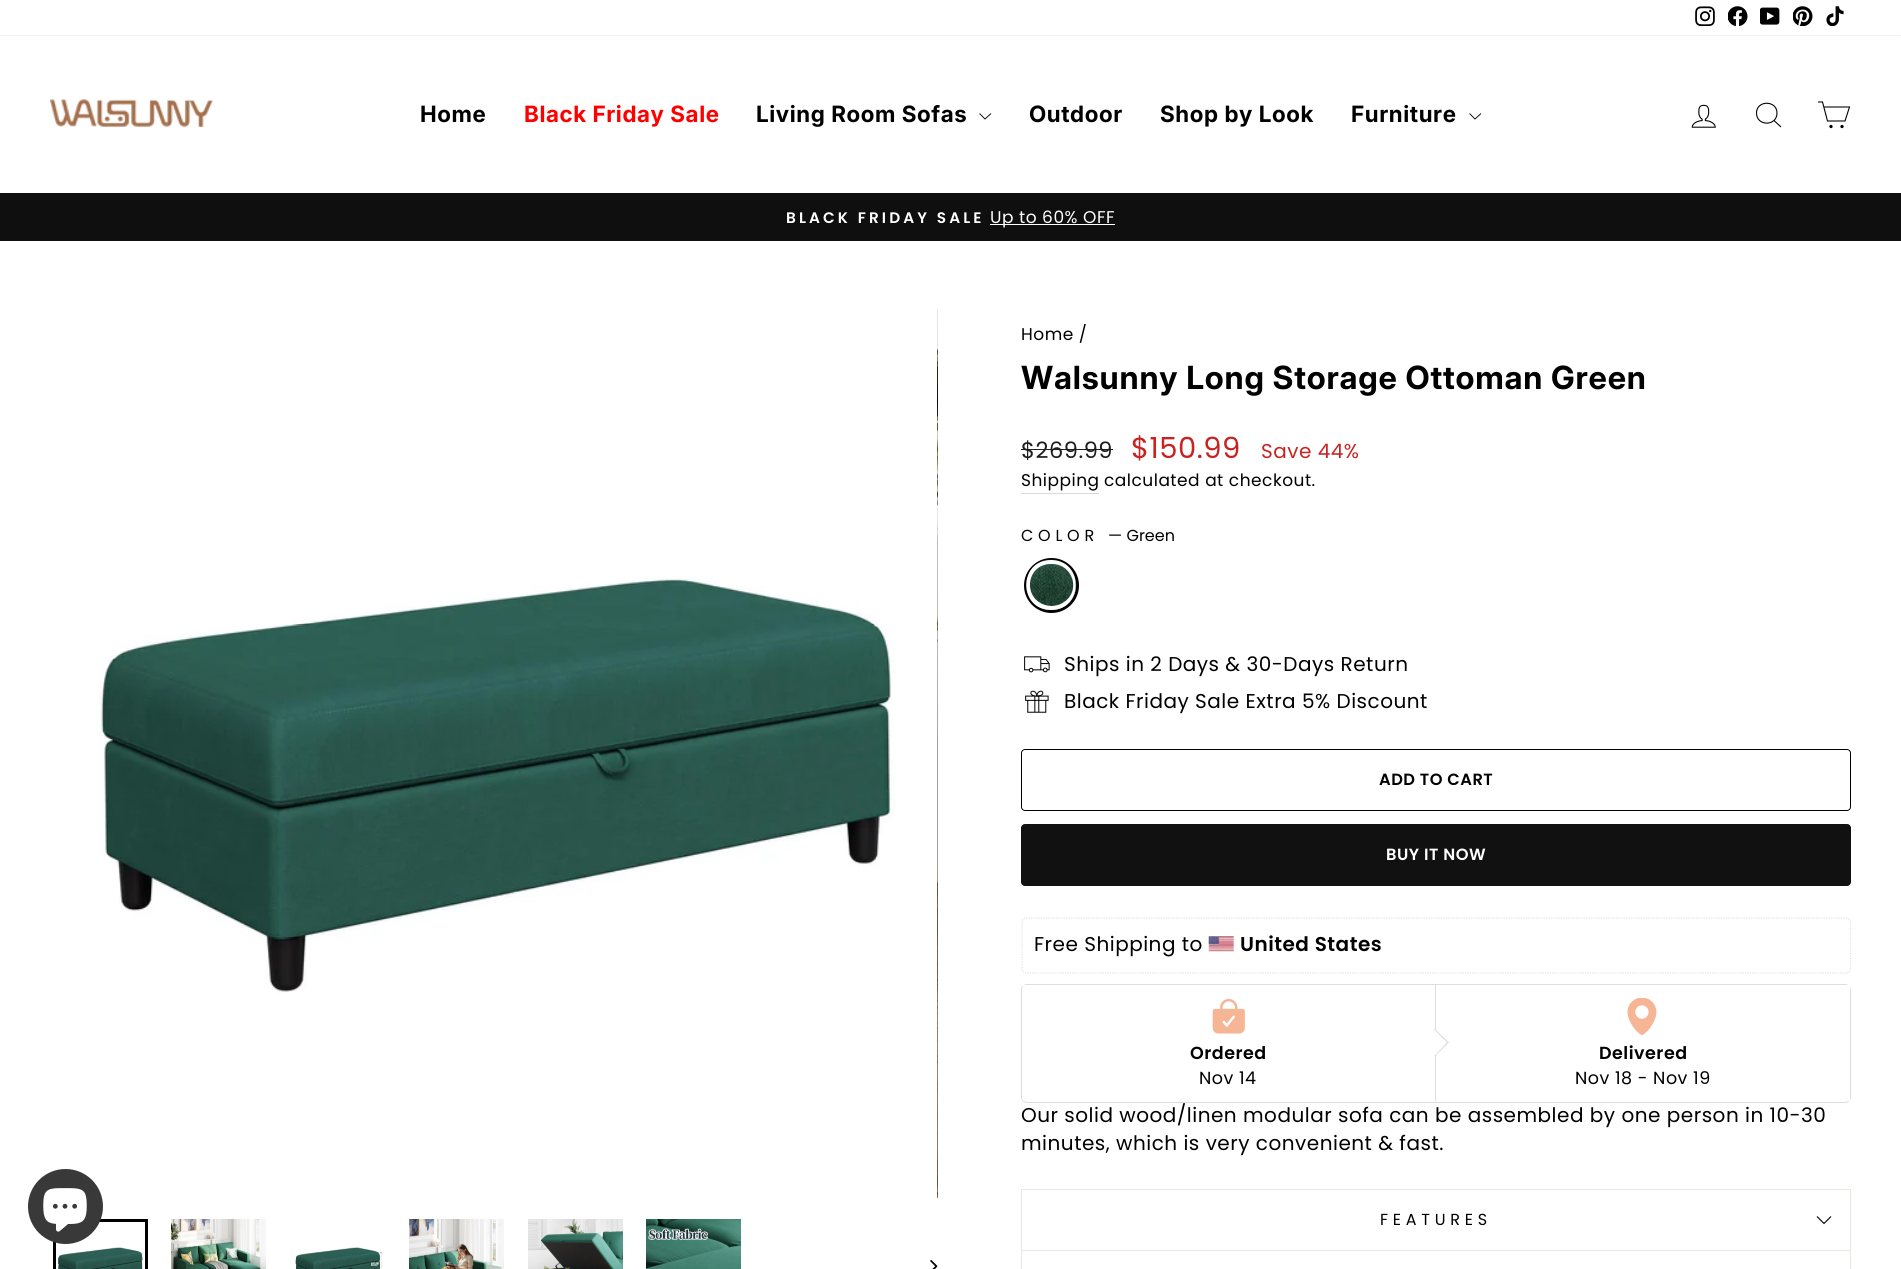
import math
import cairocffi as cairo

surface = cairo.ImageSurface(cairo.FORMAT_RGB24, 1901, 1269)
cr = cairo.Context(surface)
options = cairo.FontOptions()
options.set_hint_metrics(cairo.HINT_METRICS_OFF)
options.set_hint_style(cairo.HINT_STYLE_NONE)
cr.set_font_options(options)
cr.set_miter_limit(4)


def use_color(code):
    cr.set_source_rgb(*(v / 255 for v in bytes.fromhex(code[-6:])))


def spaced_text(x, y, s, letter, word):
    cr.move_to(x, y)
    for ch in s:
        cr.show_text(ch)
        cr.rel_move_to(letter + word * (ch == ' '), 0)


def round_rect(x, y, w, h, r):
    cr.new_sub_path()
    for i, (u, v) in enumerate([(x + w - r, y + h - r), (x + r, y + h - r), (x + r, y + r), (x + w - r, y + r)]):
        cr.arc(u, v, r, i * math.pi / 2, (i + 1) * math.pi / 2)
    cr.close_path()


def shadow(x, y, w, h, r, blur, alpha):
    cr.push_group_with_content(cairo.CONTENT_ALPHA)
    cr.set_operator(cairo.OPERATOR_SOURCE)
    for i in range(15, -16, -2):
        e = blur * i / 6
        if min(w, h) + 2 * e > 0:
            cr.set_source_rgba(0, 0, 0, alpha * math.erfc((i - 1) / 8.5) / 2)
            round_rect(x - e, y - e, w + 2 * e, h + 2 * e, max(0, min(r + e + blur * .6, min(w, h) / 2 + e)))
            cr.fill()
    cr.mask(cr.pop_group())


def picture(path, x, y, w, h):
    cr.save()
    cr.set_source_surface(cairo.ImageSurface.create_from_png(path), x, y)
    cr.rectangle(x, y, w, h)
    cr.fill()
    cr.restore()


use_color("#ffffff")
cr.paint()
picture("img11.png", 58, 1247, 85, 22)
cr.rectangle(54.5, 1220.5, 92, 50)
use_color("#000000")
cr.set_line_width(3)
cr.stroke()
use_color("#393939")
cr.arc(65.5, 1206.5, 37.5, 0, 2 * math.pi)
cr.fill()
picture("img1.png", 43, 1188, 44, 44)
picture("img2.png", 1695, 6, 20, 20)
picture("img3.png", 1728, 6, 20, 20)
picture("img4.png", 1760, 7, 20, 18)
picture("img5.png", 1793, 6, 20, 20)
picture("img6.png", 1826, 6, 18, 20)
use_color("#0f0f0f")
cr.rectangle(0, 193, 1901, 48)
cr.fill()
use_color("#000000")
shadow(0, 36, 1901, 157, 0, 0.5, 0.2)
use_color("#ffffff")
cr.rectangle(0, 36, 1901, 157)
cr.fill()
picture("img7.png", 50, 99, 163, 29)
cr.select_font_face("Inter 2", cairo.FONT_SLANT_NORMAL, cairo.FONT_WEIGHT_BOLD)
cr.set_font_size(22.5)
use_color("#000000")
spaced_text(420, 122, "Home", 0.6, 0)
use_color("#ff0000")
spaced_text(524, 122, "Black Friday Sale", 0.6, 0)
use_color("#000000")
spaced_text(756, 122, "Living Room Sofas", 0.6, 0)
cr.new_path()
cr.move_to(979.5, 113.5)
cr.line_to(985, 119)
cr.line_to(991, 113.5)
cr.set_line_width(0.9)
cr.stroke()
spaced_text(1029, 122, "Outdoor", 0.6, 0)
spaced_text(1160, 122, "Shop by Look", 0.6, 0)
spaced_text(1351, 122, "Furniture", 0.6, 0)
cr.new_path()
cr.move_to(1469.5, 113.5)
cr.line_to(1475, 119)
cr.line_to(1481, 113.5)
cr.stroke()
picture("img8.png", 1691, 104, 25, 24)
cr.new_path()
cr.move_to(1777, 113)
cr.curve_to(1777, 126.5, 1756.5, 126.5, 1756.5, 113)
cr.curve_to(1756.5, 100, 1777, 100, 1777, 113)
cr.close_path()
cr.move_to(1781, 127)
cr.line_to(1774, 120.5)
cr.set_line_width(1.1)
cr.stroke()
cr.new_path()
cr.move_to(1824, 107)
cr.line_to(1849.5, 107)
cr.line_to(1845, 121)
cr.line_to(1827.5, 121)
cr.line_to(1822.5, 102)
cr.line_to(1818, 102)
cr.stroke()
cr.arc(1831, 126.5, 1.1, 0, 2 * math.pi)
cr.fill_preserve()
cr.stroke()
cr.arc(1842, 126.5, 1.1, 0, 2 * math.pi)
cr.fill_preserve()
cr.stroke()
cr.select_font_face("Poppins SemiBold")
cr.set_font_size(15.25)
use_color("#ffffff")
spaced_text(786, 223, "BLACK FRIDAY SALE", 3.1, 0)
cr.rectangle(990, 224, 125, 1)
cr.fill()
cr.select_font_face("Poppins")
cr.set_font_size(17)
spaced_text(990, 223, "Up to 60% OFF", 0.5, 0)
picture("img9.png", 99, 576, 797, 417)
picture("img10.png", 937, 310, 1, 888)
picture("img12.png", 171, 1219, 95, 50)
picture("img13.png", 295, 1247, 88, 22)
picture("img14.png", 409, 1219, 95, 50)
picture("img15.png", 528, 1219, 95, 50)
picture("img16.png", 646, 1219, 95, 50)
picture("img17.png", 930, 1260, 8, 9)
use_color("#000000")
spaced_text(1021, 340, "Home /", 0.5, 0)
cr.select_font_face("Inter", cairo.FONT_SLANT_NORMAL, cairo.FONT_WEIGHT_BOLD)
cr.set_font_size(31.9)
spaced_text(1021, 389, "Walsunny Long Storage Ottoman Green", 0.8, 0)
cr.select_font_face("Poppins")
cr.set_font_size(22.5)
use_color("#1c1d1d")
spaced_text(1021, 458, "$269.99", 0.5, 0)
cr.rectangle(1021, 449, 92, 1)
cr.fill()
cr.set_font_size(29)
use_color("#c82221")
spaced_text(1131, 458, "$150.99", 0.5, 0)
cr.set_font_size(20)
spaced_text(1261, 458, "Save 44%", 0.5, 0)
use_color("#d9d9d9")
cr.rectangle(1021, 493, 78, 1)
cr.fill()
cr.set_font_size(17)
use_color("#000000")
spaced_text(1021, 486, "Shipping", 0.5, 0)
spaced_text(1104, 486, "calculated at checkout.", 0.5, 0)
cr.set_font_size(16)
spaced_text(1021, 541, "COLOR", 4.75, 0)
cr.move_to(1108, 541)
cr.show_text("— Green")
cr.new_path()
cr.arc(1051.5, 585.5, 26, 0, 2 * math.pi)
cr.set_line_width(3)
cr.stroke()
picture("img18.png", 1026, 559, 51, 52)
use_color("#ffffff")
cr.set_fill_rule(cairo.FILL_RULE_EVEN_ODD)
cr.new_path()
cr.move_to(1051, 560)
cr.curve_to(1018, 560, 1018, 610, 1051, 610)
cr.curve_to(1084, 610, 1084, 560, 1051, 560)
cr.close_path()
cr.move_to(1051, 564)
cr.curve_to(1024, 564, 1022, 604, 1051, 606)
cr.curve_to(1055, 606, 1060, 605, 1064, 602)
cr.curve_to(1081, 591, 1073, 564, 1052, 564)
cr.close_path()
cr.fill()
picture("img19.png", 1024, 656, 26, 17)
cr.set_font_size(20)
use_color("#000000")
spaced_text(1064, 671, "Ships in 2 Days & 30-Days Return", 0.5, 0)
picture("img20.png", 1025, 690, 24, 23)
spaced_text(1064, 708, "Black Friday Sale Extra 5% Discount", 0.5, 0)
round_rect(1021.5, 749.5, 829, 61, 3.5)
cr.set_line_width(1)
cr.stroke()
cr.select_font_face("Poppins SemiBold")
cr.set_font_size(16.25)
spaced_text(1379, 785, "ADD TO CART", 0.5, 0)
use_color("#111111")
round_rect(1021, 824, 830, 62, 4)
cr.fill()
use_color("#ffffff")
spaced_text(1386, 860, "BUY IT NOW", 0.5, 0)
cr.new_path()
cr.move_to(1026, 918)
cr.line_to(1846, 918)
cr.curve_to(1848.5, 918, 1850.5, 920, 1850.5, 922.5)
cr.line_to(1850.5, 969)
cr.curve_to(1850.5, 971, 1848.5, 973, 1846, 973)
cr.line_to(1026, 973)
cr.curve_to(1024, 973, 1022, 971, 1022, 969)
cr.line_to(1022, 922.5)
cr.curve_to(1022, 920, 1024, 918, 1026, 918)
cr.close_path()
use_color("#e2e2e2")
cr.set_line_width(1.2)
cr.set_dash([1.25, 1.25])
cr.stroke()
cr.select_font_face("Poppins")
cr.set_font_size(20)
use_color("#000000")
spaced_text(1034, 951, "Free Shipping to", 0.5, 0)
picture("img21.png", 1208, 936, 26, 16)
cr.select_font_face("Poppins SemiBold")
spaced_text(1240, 951, "United States", 0.5, 0)
round_rect(1021.5, 984.5, 829, 118, 5.5)
use_color("#dedede")
cr.set_line_width(1)
cr.set_dash([])
cr.stroke()
use_color("#ffffff")
cr.rectangle(1023, 985, 3, 116)
cr.fill()
use_color("#dedede")
cr.rectangle(1435, 985, 1, 116)
cr.fill()
picture("img22.png", 1212, 998, 33, 36)
use_color("#ffffff")
cr.set_fill_rule(cairo.FILL_RULE_WINDING)
cr.new_path()
cr.move_to(1420.5, 1042.5)
cr.line_to(1434.5, 1028.5)
cr.line_to(1449, 1042.5)
cr.line_to(1434.5, 1056.5)
cr.close_path()
cr.fill()
cr.set_source_rgba(0.133, 0.141, 0.149, 0.15)
cr.new_path()
cr.move_to(1434.5, 1028.5)
cr.line_to(1449, 1042.5)
cr.line_to(1447, 1042.5)
cr.line_to(1434, 1029.5)
cr.close_path()
cr.fill()
cr.new_path()
cr.move_to(1449, 1042.5)
cr.line_to(1434.5, 1056.5)
cr.line_to(1434, 1056)
cr.line_to(1447, 1042.5)
cr.close_path()
cr.fill()
cr.set_font_size(17.5)
use_color("#000000")
spaced_text(1190, 1059, "Ordered", 0.5, 0)
cr.select_font_face("Poppins")
spaced_text(1199, 1084, "Nov 14", 0.5, 0)
use_color("#ffffff")
cr.rectangle(1846, 985, 4, 116)
cr.fill()
picture("img23.png", 1627, 998, 30, 37)
cr.select_font_face("Poppins SemiBold")
use_color("#000000")
spaced_text(1599, 1059, "Delivered", 0.5, 0)
cr.select_font_face("Poppins")
spaced_text(1575, 1084, "Nov 18 - Nov 19", 0.5, 0)
cr.set_font_size(20)
spaced_text(1021, 1122, "Our solid wood/linen modular sofa can be assembled by one person in 10-30", 0.5, 0)
spaced_text(1021, 1150, "minutes, which is very convenient & fast.", 0.5, 0)
use_color("#e8e8e1")
cr.rectangle(1021, 1250, 830, 1)
cr.fill()
cr.rectangle(1021, 1189, 830, 1)
cr.fill()
cr.rectangle(1850, 1189, 1, 61)
cr.fill()
cr.rectangle(1021, 1189, 1, 61)
cr.fill()
cr.set_font_size(16)
use_color("#000000")
spaced_text(1380, 1225, "FEATURES", 4.75, 0)
cr.new_path()
cr.move_to(1817, 1216.5)
cr.line_to(1824, 1223.5)
cr.line_to(1831, 1216.5)
cr.set_line_width(1.1)
cr.stroke()
use_color("#e8e8e1")
cr.rectangle(1850, 1251, 1, 18)
cr.fill()
cr.rectangle(1021, 1251, 1, 18)
cr.fill()
surface.write_to_png("result.png")
